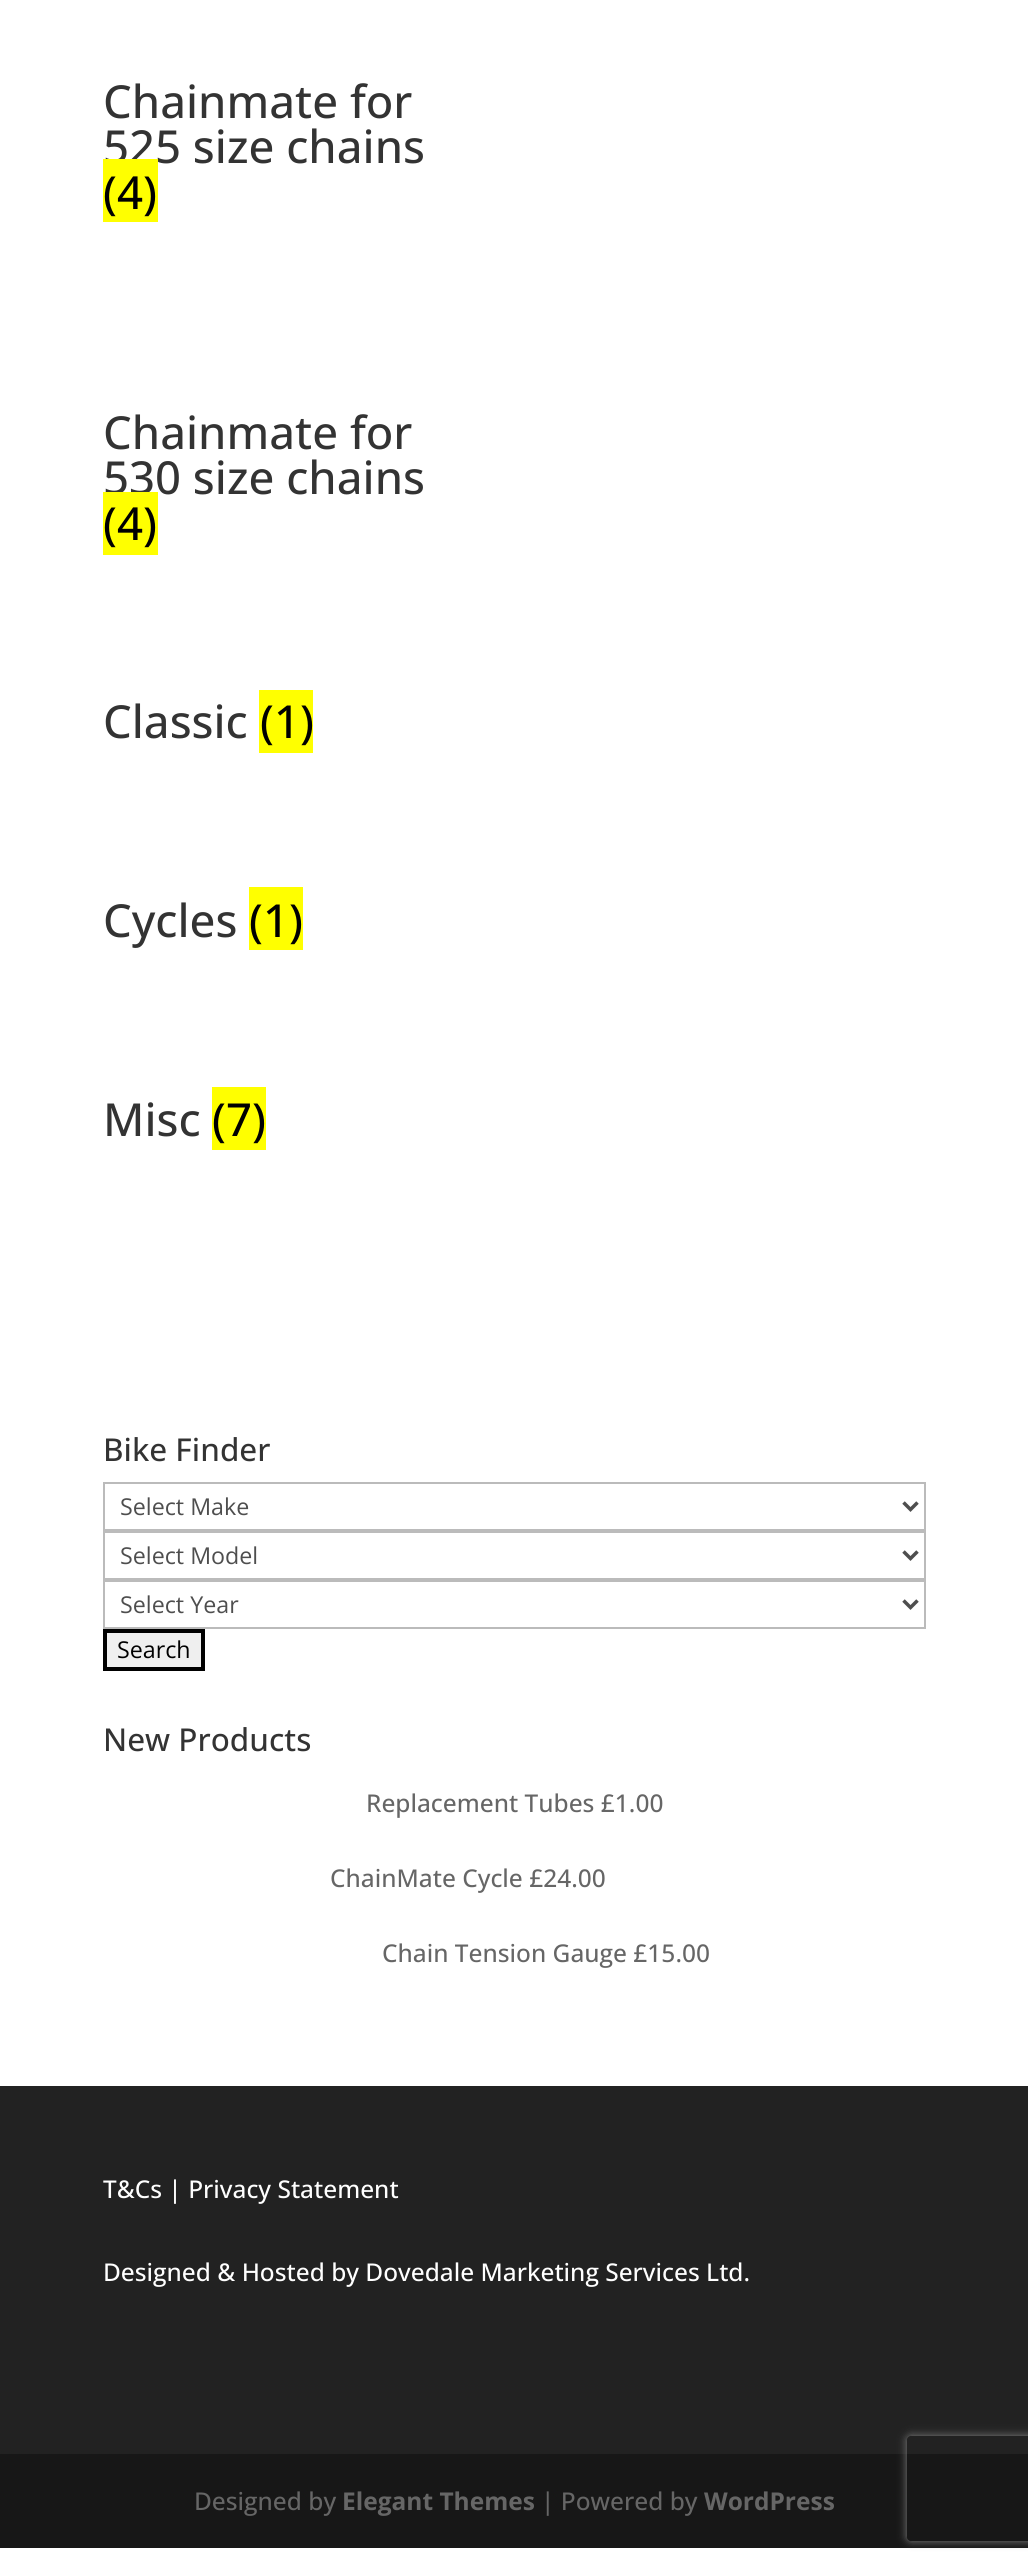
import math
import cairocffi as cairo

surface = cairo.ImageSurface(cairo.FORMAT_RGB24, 1028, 2565)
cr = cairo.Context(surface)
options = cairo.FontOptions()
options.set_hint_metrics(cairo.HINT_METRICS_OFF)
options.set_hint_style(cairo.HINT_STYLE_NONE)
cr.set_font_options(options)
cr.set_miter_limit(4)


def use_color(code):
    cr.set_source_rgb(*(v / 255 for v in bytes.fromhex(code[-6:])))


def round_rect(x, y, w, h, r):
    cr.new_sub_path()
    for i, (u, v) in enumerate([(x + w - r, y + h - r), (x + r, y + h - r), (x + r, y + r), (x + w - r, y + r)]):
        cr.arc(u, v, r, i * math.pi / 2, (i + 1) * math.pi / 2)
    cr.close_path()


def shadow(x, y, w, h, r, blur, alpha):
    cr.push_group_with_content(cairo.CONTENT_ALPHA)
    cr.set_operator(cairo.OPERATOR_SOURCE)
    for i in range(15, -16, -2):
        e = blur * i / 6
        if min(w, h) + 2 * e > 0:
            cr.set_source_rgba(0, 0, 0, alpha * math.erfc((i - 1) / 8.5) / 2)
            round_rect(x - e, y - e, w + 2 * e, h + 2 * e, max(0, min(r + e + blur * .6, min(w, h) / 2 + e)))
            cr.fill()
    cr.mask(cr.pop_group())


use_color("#ffffff")
cr.paint()
cr.select_font_face("Open Sans Medium")
cr.set_font_size(45.5)
use_color("#333333")
cr.move_to(103, 118)
cr.show_text("Chainmate for")
cr.move_to(103, 163)
cr.show_text("525 size chains")
use_color("#ffff00")
cr.rectangle(103, 159, 55, 63)
cr.fill()
use_color("#000000")
cr.move_to(103, 209)
cr.show_text("(4)")
use_color("#333333")
cr.move_to(103, 449)
cr.show_text("Chainmate for")
cr.move_to(103, 494)
cr.show_text("530 size chains")
use_color("#ffff00")
cr.rectangle(103, 492, 55, 63)
cr.fill()
use_color("#000000")
cr.move_to(103, 540)
cr.show_text("(4)")
use_color("#333333")
cr.move_to(103, 738)
cr.show_text("Classic")
use_color("#ffff00")
cr.rectangle(259, 690, 54, 63)
cr.fill()
use_color("#000000")
cr.move_to(260, 738)
cr.show_text("(1)")
use_color("#333333")
cr.move_to(103, 937)
cr.show_text("Cycles")
use_color("#ffff00")
cr.rectangle(249, 887, 54, 63)
cr.fill()
use_color("#000000")
cr.move_to(249, 937)
cr.show_text("(1)")
use_color("#333333")
cr.move_to(103, 1136)
cr.show_text("Misc")
use_color("#ffff00")
cr.rectangle(212, 1087, 54, 63)
cr.fill()
use_color("#000000")
cr.move_to(212, 1136)
cr.show_text("(7)")
cr.set_font_size(31.5)
use_color("#333333")
cr.move_to(103, 1461)
cr.show_text("Bike Finder")
cr.rectangle(104, 1483, 821, 47)
use_color("#bbbbbb")
cr.stroke()
cr.new_path()
cr.move_to(903.5, 1502.5)
cr.line_to(910.5, 1509.5)
cr.line_to(917.5, 1502.5)
use_color("#4e4e4e")
cr.set_line_width(3.5)
cr.stroke()
cr.select_font_face("Open Sans")
cr.set_font_size(23.25)
cr.move_to(120, 1515)
cr.show_text("Select Make")
cr.rectangle(104, 1532, 821, 47)
use_color("#bbbbbb")
cr.set_line_width(2)
cr.stroke()
cr.new_path()
cr.move_to(903.5, 1551.5)
cr.line_to(910.5, 1558.5)
cr.line_to(917.5, 1551.5)
use_color("#4e4e4e")
cr.set_line_width(3.5)
cr.stroke()
cr.move_to(120, 1564)
cr.show_text("Select Model")
cr.rectangle(104, 1581, 821, 47)
use_color("#bbbbbb")
cr.set_line_width(2)
cr.stroke()
cr.new_path()
cr.move_to(903.5, 1600.5)
cr.line_to(910.5, 1607.5)
cr.line_to(917.5, 1600.5)
use_color("#4e4e4e")
cr.set_line_width(3.5)
cr.stroke()
cr.move_to(120, 1613)
cr.show_text("Select Year")
use_color("#efefef")
cr.rectangle(105, 1631, 98, 38)
cr.fill_preserve()
use_color("#000000")
cr.set_line_width(4)
cr.stroke()
cr.move_to(117, 1658)
cr.show_text("Search")
cr.select_font_face("Open Sans Medium")
cr.set_font_size(31.5)
use_color("#333333")
cr.move_to(103, 1751)
cr.show_text("New Products")
cr.set_font_size(24.5)
use_color("#666666")
cr.move_to(366, 1812)
cr.show_text("Replacement Tubes £1.00")
cr.move_to(330, 1887)
cr.show_text("ChainMate Cycle £24.00")
cr.move_to(382, 1962)
cr.show_text("Chain Tension Gauge £15.00")
use_color("#222222")
cr.rectangle(0, 2086, 1028, 368)
cr.fill()
use_color("#ffffff")
cr.move_to(103, 2198)
cr.show_text("T&Cs | Privacy Statement")
cr.move_to(103, 2281)
cr.show_text("Designed & Hosted by Dovedale Marketing Services Ltd.")
use_color("#171717")
cr.rectangle(0, 2454, 1028, 94)
cr.fill()
use_color("#666666")
cr.move_to(194, 2510)
cr.show_text("Designed by")
cr.select_font_face("Open Sans", cairo.FONT_SLANT_NORMAL, cairo.FONT_WEIGHT_BOLD)
cr.move_to(342, 2510)
cr.show_text("Elegant Themes")
cr.select_font_face("Open Sans Medium")
cr.move_to(541, 2510)
cr.show_text("| Powered by")
cr.select_font_face("Open Sans", cairo.FONT_SLANT_NORMAL, cairo.FONT_WEIGHT_BOLD)
cr.move_to(704, 2510)
cr.show_text("WordPress")
cr.save()
cr.set_fill_rule(cairo.FILL_RULE_EVEN_ODD)
cr.new_path()
cr.move_to(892, 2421)
cr.line_to(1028, 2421)
cr.line_to(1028, 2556)
cr.line_to(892, 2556)
cr.close_path()
cr.move_to(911, 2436)
cr.line_to(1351, 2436)
cr.curve_to(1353, 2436, 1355, 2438, 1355, 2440)
cr.line_to(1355, 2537)
cr.curve_to(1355, 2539, 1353, 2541, 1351, 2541)
cr.line_to(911, 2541)
cr.curve_to(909, 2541, 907, 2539, 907, 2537)
cr.line_to(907, 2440)
cr.curve_to(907, 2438, 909, 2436, 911, 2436)
cr.close_path()
cr.clip()
use_color("#808080")
shadow(907, 2436, 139, 105, 4, 4.5, 1)
cr.restore()
surface.write_to_png("result.png")
